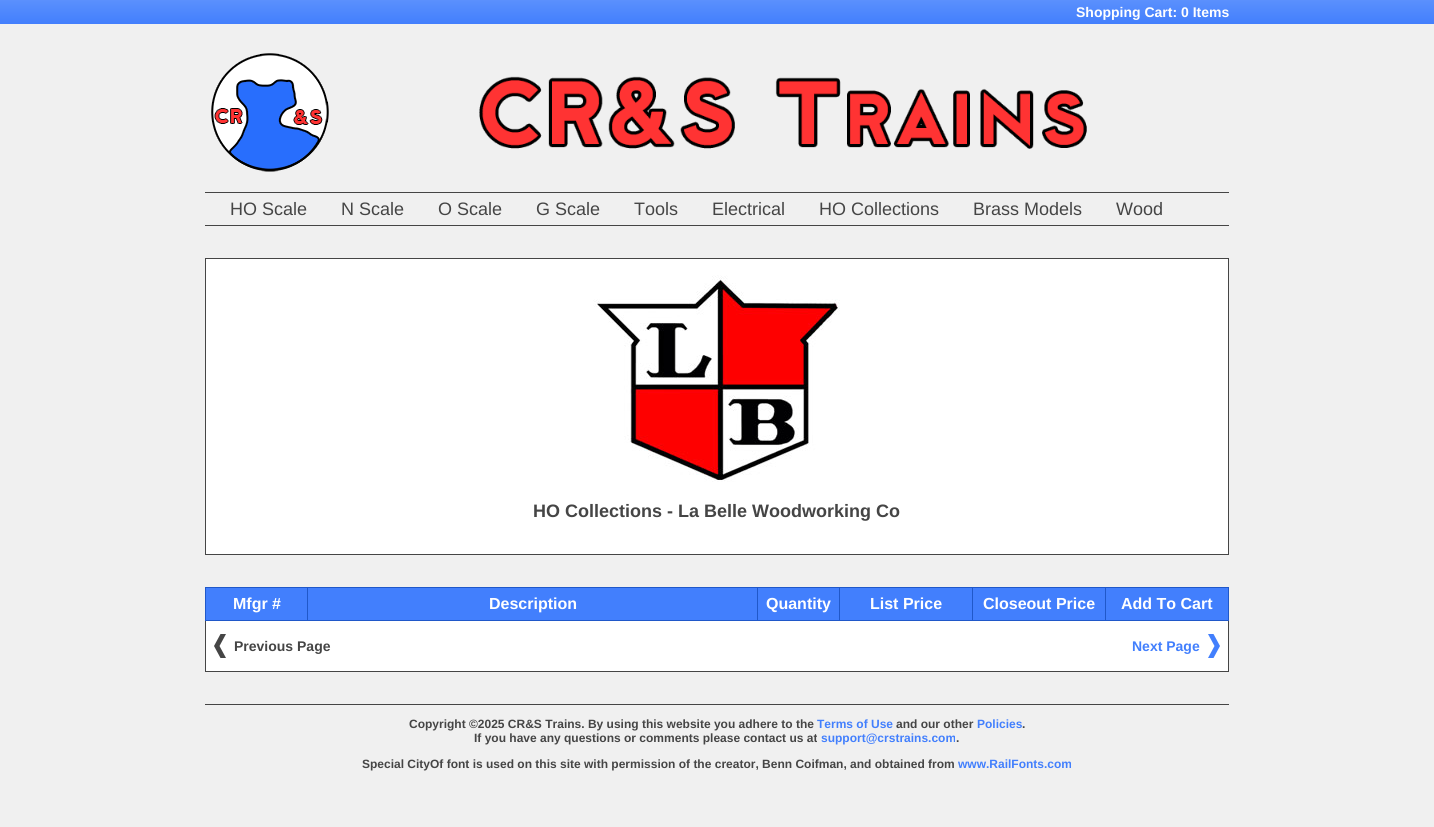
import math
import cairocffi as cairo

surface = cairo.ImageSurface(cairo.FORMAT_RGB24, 1434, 827)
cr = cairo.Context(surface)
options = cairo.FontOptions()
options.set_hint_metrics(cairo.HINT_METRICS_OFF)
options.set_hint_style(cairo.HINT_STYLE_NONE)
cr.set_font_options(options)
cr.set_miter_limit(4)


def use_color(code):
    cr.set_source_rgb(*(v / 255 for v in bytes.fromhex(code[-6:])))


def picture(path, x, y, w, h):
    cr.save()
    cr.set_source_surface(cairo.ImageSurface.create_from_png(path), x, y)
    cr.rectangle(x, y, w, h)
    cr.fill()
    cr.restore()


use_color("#f0f0f0")
cr.paint()
gradient = cairo.LinearGradient(717, 0, 717, 24)
gradient.add_color_stop_rgba(0, 0.357, 0.565, 0.992, 1)
gradient.add_color_stop_rgba(1, 0.259, 0.498, 0.992, 1)
cr.set_source(gradient)
cr.rectangle(0, 0, 1434, 24)
cr.fill()
cr.select_font_face("Liberation Sans", cairo.FONT_SLANT_NORMAL, cairo.FONT_WEIGHT_BOLD)
cr.set_font_size(14)
use_color("#ffffff")
cr.move_to(1076, 17)
cr.show_text("Shopping Cart: 0 Items")
picture("img1.png", 211, 53, 118, 119)
picture("img2.png", 479, 76, 608, 73)
use_color("#454545")
cr.rectangle(205, 192, 1024, 1)
cr.fill()
cr.rectangle(205, 225, 1024, 1)
cr.fill()
cr.select_font_face("Liberation Sans")
cr.set_font_size(18)
cr.move_to(230, 215)
cr.show_text("HO Scale")
cr.move_to(341, 215)
cr.show_text("N Scale")
cr.move_to(438, 215)
cr.show_text("O Scale")
cr.move_to(536, 215)
cr.show_text("G Scale")
cr.move_to(634, 215)
cr.show_text("Tools")
cr.move_to(712, 215)
cr.show_text("Electrical")
cr.move_to(819, 215)
cr.show_text("HO Collections")
cr.move_to(973, 215)
cr.show_text("Brass Models")
cr.move_to(1116, 215)
cr.show_text("Wood")
use_color("#ffffff")
cr.rectangle(205.5, 258.5, 1023, 296)
cr.fill_preserve()
use_color("#454545")
cr.set_line_width(1)
cr.stroke()
picture("img3.png", 593, 275, 247, 207)
cr.select_font_face("Liberation Sans", cairo.FONT_SLANT_NORMAL, cairo.FONT_WEIGHT_BOLD)
cr.move_to(533, 517)
cr.show_text("HO Collections - La Belle Woodworking Co")
use_color("#2058c9")
cr.rectangle(205, 587, 1024, 1)
cr.fill()
cr.rectangle(205, 587, 1, 33)
cr.fill()
use_color("#427ffd")
cr.rectangle(206, 588, 101, 32)
cr.fill()
use_color("#454545")
cr.rectangle(1228, 620, 1, 52)
cr.fill()
use_color("#2058c9")
cr.rectangle(1228, 587, 1, 34)
cr.fill()
cr.rectangle(1105, 620, 124, 1)
cr.fill()
cr.rectangle(1105, 587, 1, 34)
cr.fill()
cr.rectangle(972, 620, 134, 1)
cr.fill()
cr.rectangle(972, 587, 1, 34)
cr.fill()
cr.rectangle(839, 620, 134, 1)
cr.fill()
cr.rectangle(839, 587, 1, 34)
cr.fill()
cr.rectangle(757, 620, 83, 1)
cr.fill()
cr.rectangle(757, 587, 1, 34)
cr.fill()
cr.rectangle(307, 620, 451, 1)
cr.fill()
cr.rectangle(307, 587, 1, 34)
cr.fill()
use_color("#454545")
cr.rectangle(205, 671, 1024, 1)
cr.fill()
cr.rectangle(205, 620, 1, 52)
cr.fill()
use_color("#2058c9")
cr.rectangle(205, 620, 103, 1)
cr.fill()
cr.set_font_size(16)
use_color("#ffffff")
cr.move_to(233, 609)
cr.show_text("Mfgr #")
use_color("#427ffd")
cr.rectangle(308, 588, 449, 32)
cr.fill()
use_color("#ffffff")
cr.move_to(489, 609)
cr.show_text("Description")
use_color("#427ffd")
cr.rectangle(758, 588, 81, 32)
cr.fill()
use_color("#ffffff")
cr.move_to(766, 609)
cr.show_text("Quantity")
use_color("#427ffd")
cr.rectangle(840, 588, 132, 32)
cr.fill()
use_color("#ffffff")
cr.move_to(870, 609)
cr.show_text("List Price")
use_color("#427ffd")
cr.rectangle(973, 588, 132, 32)
cr.fill()
use_color("#ffffff")
cr.move_to(983, 609)
cr.show_text("Closeout Price")
use_color("#427ffd")
cr.rectangle(1106, 588, 122, 32)
cr.fill()
use_color("#ffffff")
cr.move_to(1121, 609)
cr.show_text("Add To Cart")
cr.rectangle(206, 621, 1022, 50)
cr.fill()
picture("img4.png", 214, 634, 12, 24)
cr.set_font_size(14)
use_color("#454545")
cr.move_to(234, 651)
cr.show_text("Previous Page")
picture("img5.png", 1208, 634, 12, 24)
use_color("#427ffd")
cr.move_to(1132, 651)
cr.show_text("Next Page")
use_color("#454545")
cr.rectangle(205, 704, 1024, 1)
cr.fill()
cr.set_font_size(12)
cr.move_to(409, 728)
cr.show_text("Copyright ©2025 CR&S Trains. By using this website you adhere to the")
use_color("#427ffd")
cr.move_to(817, 728)
cr.show_text("Terms of Use")
use_color("#454545")
cr.move_to(896, 728)
cr.show_text("and our other")
use_color("#427ffd")
cr.move_to(977, 728)
cr.show_text("Policies")
use_color("#454545")
cr.move_to(1022, 728)
cr.show_text(".")
cr.move_to(474, 742)
cr.show_text("If you have any questions or comments please contact us at")
use_color("#427ffd")
cr.move_to(821, 742)
cr.show_text("support@crstrains.com")
use_color("#454545")
cr.move_to(956, 742)
cr.show_text(".")
cr.move_to(362, 768)
cr.show_text("Special CityOf font is used on this site with permission of the creator, Benn Coifman, and obtained from")
use_color("#427ffd")
cr.move_to(958, 768)
cr.show_text("www.RailFonts.com")
surface.write_to_png("result.png")
